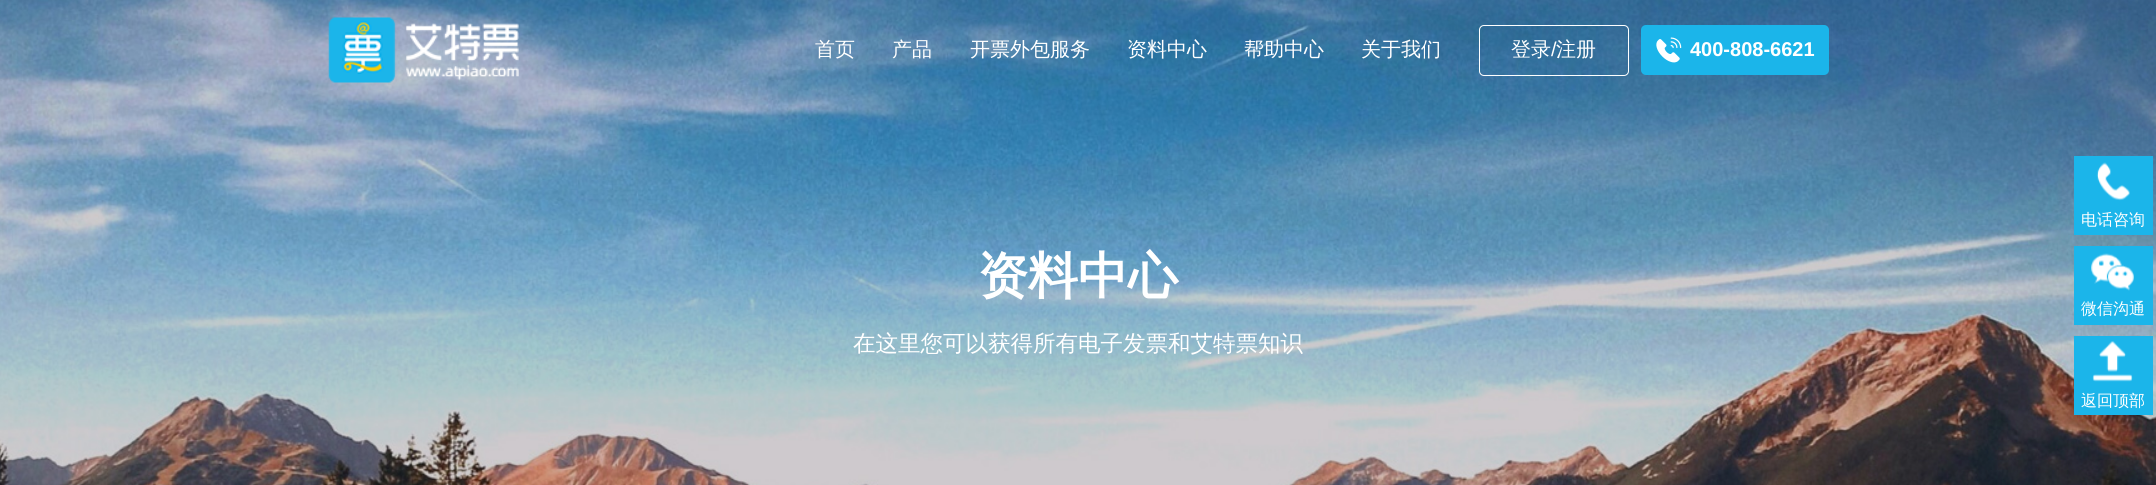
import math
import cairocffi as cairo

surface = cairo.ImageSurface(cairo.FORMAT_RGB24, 2156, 485)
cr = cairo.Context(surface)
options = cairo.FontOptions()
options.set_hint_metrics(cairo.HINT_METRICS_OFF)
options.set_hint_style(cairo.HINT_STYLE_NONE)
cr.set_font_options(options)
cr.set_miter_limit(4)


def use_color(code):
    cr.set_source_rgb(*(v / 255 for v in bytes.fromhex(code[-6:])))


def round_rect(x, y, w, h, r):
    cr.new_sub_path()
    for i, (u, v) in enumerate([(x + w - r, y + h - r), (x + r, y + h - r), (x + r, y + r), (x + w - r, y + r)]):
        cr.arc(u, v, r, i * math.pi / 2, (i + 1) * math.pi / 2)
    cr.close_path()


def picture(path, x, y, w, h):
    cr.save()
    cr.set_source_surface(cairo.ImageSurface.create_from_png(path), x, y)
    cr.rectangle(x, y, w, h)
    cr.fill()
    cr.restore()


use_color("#ffffff")
cr.paint()
picture("img3.png", 0, 0, 2156, 485)
picture("img1.png", 328, 17, 191, 66)
cr.select_font_face("WenQuanYi Zen Hei Medium")
cr.set_font_size(20)
use_color("#ffffff")
cr.move_to(815, 56)
cr.show_text("首页")
cr.move_to(892, 56)
cr.show_text("产品")
cr.move_to(970, 56)
cr.show_text("开票外包服务")
cr.move_to(1127, 56)
cr.show_text("资料中心")
cr.move_to(1244, 56)
cr.show_text("帮助中心")
cr.move_to(1361, 56)
cr.show_text("关于我们")
round_rect(1479.5, 25.5, 149, 50, 4.5)
cr.set_line_width(1)
cr.stroke()
cr.move_to(1511, 56)
cr.show_text("登录")
cr.select_font_face("Liberation Sans")
cr.move_to(1551, 56)
cr.show_text("/")
cr.select_font_face("WenQuanYi Zen Hei Medium")
cr.move_to(1556, 56)
cr.show_text("注册")
use_color("#1bb5ea")
round_rect(1641, 25, 188, 50, 5)
cr.fill()
picture("img2.png", 1656, 37, 26, 26)
cr.select_font_face("Liberation Sans", cairo.FONT_SLANT_NORMAL, cairo.FONT_WEIGHT_BOLD)
use_color("#ffffff")
cr.move_to(1690, 56)
cr.show_text("400-808-6621")
cr.select_font_face("WenQuanYi Zen Hei", cairo.FONT_SLANT_NORMAL, cairo.FONT_WEIGHT_BOLD)
cr.set_font_size(50)
cr.move_to(978, 293)
cr.show_text("资料中心")
cr.select_font_face("WenQuanYi Zen Hei Medium")
cr.set_font_size(22.5)
cr.move_to(853, 351)
cr.show_text("在这里您可以获得所有电子发票和艾特票知识")
use_color("#1bb5ea")
cr.rectangle(2074, 156, 79, 79)
cr.fill()
picture("img4.png", 2096, 162, 34, 39)
cr.set_font_size(16)
use_color("#ffffff")
cr.move_to(2081, 225)
cr.show_text("电话咨询")
use_color("#1bb5ea")
cr.rectangle(2074, 246, 79, 79)
cr.fill()
picture("img5.png", 2091, 253, 43, 38)
use_color("#ffffff")
cr.move_to(2081, 314)
cr.show_text("微信沟通")
use_color("#1bb5ea")
cr.rectangle(2074, 336, 79, 79)
cr.fill()
picture("img6.png", 2092, 341, 41, 41)
use_color("#ffffff")
cr.move_to(2081, 406)
cr.show_text("返回顶部")
surface.write_to_png("result.png")
